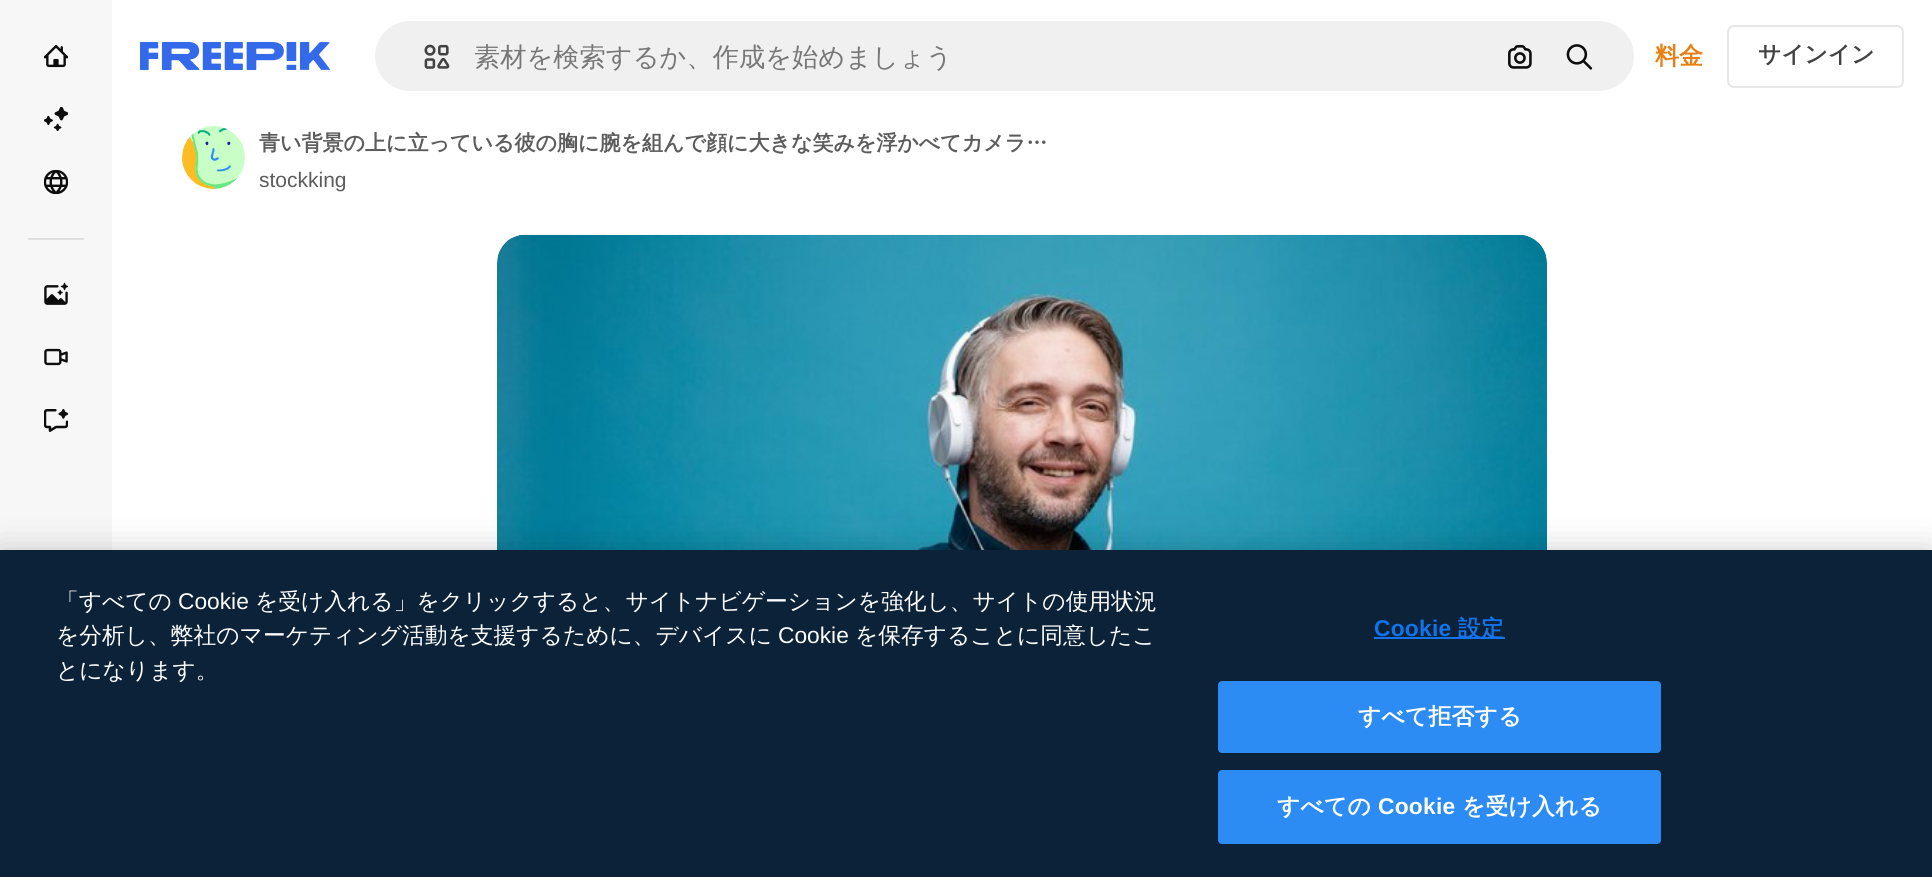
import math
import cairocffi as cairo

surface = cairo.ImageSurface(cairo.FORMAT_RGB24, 1932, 877)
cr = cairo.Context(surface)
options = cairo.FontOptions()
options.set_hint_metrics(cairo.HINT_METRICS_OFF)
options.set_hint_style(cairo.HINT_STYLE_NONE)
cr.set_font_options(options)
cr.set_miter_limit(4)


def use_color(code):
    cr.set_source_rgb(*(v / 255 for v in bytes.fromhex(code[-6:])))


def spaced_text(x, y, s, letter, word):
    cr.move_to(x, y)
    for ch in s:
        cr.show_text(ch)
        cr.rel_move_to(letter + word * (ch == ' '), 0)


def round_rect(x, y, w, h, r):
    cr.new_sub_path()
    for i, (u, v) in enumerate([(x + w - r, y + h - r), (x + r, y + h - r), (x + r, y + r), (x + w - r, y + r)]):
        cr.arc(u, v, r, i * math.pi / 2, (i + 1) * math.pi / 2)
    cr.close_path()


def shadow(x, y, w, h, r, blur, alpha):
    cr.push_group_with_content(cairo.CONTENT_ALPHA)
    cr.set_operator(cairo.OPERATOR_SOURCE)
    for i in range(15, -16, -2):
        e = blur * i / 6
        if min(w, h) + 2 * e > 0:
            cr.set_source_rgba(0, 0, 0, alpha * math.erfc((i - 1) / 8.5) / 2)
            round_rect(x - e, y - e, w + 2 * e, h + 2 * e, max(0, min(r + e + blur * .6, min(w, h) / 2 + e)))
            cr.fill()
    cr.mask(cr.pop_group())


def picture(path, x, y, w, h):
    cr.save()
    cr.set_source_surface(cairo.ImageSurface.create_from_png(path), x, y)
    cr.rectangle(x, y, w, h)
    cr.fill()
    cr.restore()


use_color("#ffffff")
cr.paint()
use_color("#f7f7f7")
cr.rectangle(0, 0, 112, 550)
cr.fill()
picture("img1.png", 44, 45, 24, 23)
picture("img2.png", 44, 107, 24, 24)
picture("img3.png", 44, 170, 24, 24)
use_color("#e0e0e0")
cr.rectangle(28, 238, 56, 2)
cr.fill()
picture("img4.png", 44, 282, 24, 23)
picture("img5.png", 44, 348, 24, 18)
picture("img6.png", 44, 409, 24, 23)
picture("img7.png", 140, 42, 190, 28)
use_color("#f0f0f0")
round_rect(374, 20, 1261, 72, 36)
cr.fill_preserve()
use_color("#ffffff")
cr.stroke()
picture("img8.png", 424, 44, 26, 25)
cr.select_font_face("WenQuanYi Zen Hei Medium")
cr.set_font_size(26.25)
use_color("#777777")
cr.move_to(474, 66)
cr.show_text("素材を検索するか、作成を始めましょう")
picture("img9.png", 1508, 45, 24, 24)
picture("img10.png", 1566, 44, 27, 26)
cr.select_font_face("WenQuanYi Zen Hei", cairo.FONT_SLANT_NORMAL, cairo.FONT_WEIGHT_BOLD)
cr.set_font_size(24)
use_color("#ea7e11")
cr.move_to(1655, 64)
cr.show_text("料金")
round_rect(1728, 26, 175, 61, 6)
use_color("#e7e7e7")
cr.stroke()
cr.set_font_size(22.75)
use_color("#424242")
cr.move_to(1758, 62)
cr.show_text("サインイン")
picture("img11.png", 182, 126, 63, 63)
cr.set_font_size(21)
use_color("#5c5c5c")
cr.move_to(259, 150)
cr.show_text("青い背景の上に立っている彼の胸に腕を組んで顔に大きな笑みを浮かべてカメラ…")
cr.select_font_face("Liberation Sans")
cr.move_to(259, 187)
cr.show_text("stockking")
picture("img12.png", 497, 234, 1050, 316)
use_color("#000000")
shadow(0, 550, 1932, 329, 0, 16, 0.2)
use_color("#0b2239")
cr.rectangle(0, 550, 1932, 327)
cr.fill()
cr.select_font_face("WenQuanYi Zen Hei Medium")
cr.set_font_size(22.75)
use_color("#ffffff")
cr.move_to(56, 609)
cr.show_text("「すべての")
cr.select_font_face("Liberation Sans")
cr.move_to(178, 609)
cr.show_text("Cookie")
cr.select_font_face("WenQuanYi Zen Hei Medium")
cr.move_to(255, 609)
cr.show_text("を受け入れる」をクリックすると、サイトナビゲーションを強化し、サイトの使用状況")
cr.move_to(56, 643)
cr.show_text("を分析し、弊社のマーケティング活動を支援するために、デバイスに")
cr.select_font_face("Liberation Sans")
cr.move_to(778, 643)
cr.show_text("Cookie")
cr.select_font_face("WenQuanYi Zen Hei Medium")
cr.move_to(855, 643)
cr.show_text("を保存することに同意したこ")
cr.move_to(56, 678)
cr.show_text("とになります。")
cr.select_font_face("Liberation Sans", cairo.FONT_SLANT_NORMAL, cairo.FONT_WEIGHT_BOLD)
use_color("#1273eb")
spaced_text(1374, 636, "Cookie", 0.25, 0)
cr.rectangle(1374, 637, 131, 2)
cr.fill()
cr.select_font_face("WenQuanYi Zen Hei", cairo.FONT_SLANT_NORMAL, cairo.FONT_WEIGHT_BOLD)
spaced_text(1458, 636, "設定", 0.25, 0)
use_color("#2c8cf4")
round_rect(1219, 682, 441, 70, 3)
cr.fill_preserve()
cr.stroke()
use_color("#ffffff")
spaced_text(1358, 724, "すべて拒否する", 0.25, 0)
use_color("#2c8cf4")
round_rect(1219, 771, 441, 72, 3)
cr.fill_preserve()
cr.stroke()
use_color("#ffffff")
spaced_text(1277, 814, "すべての", 0.25, 0)
cr.select_font_face("Liberation Sans", cairo.FONT_SLANT_NORMAL, cairo.FONT_WEIGHT_BOLD)
spaced_text(1378, 814, "Cookie", 0.25, 0)
cr.select_font_face("WenQuanYi Zen Hei", cairo.FONT_SLANT_NORMAL, cairo.FONT_WEIGHT_BOLD)
spaced_text(1462, 814, "を受け入れる", 0.25, 0)
surface.write_to_png("result.png")
